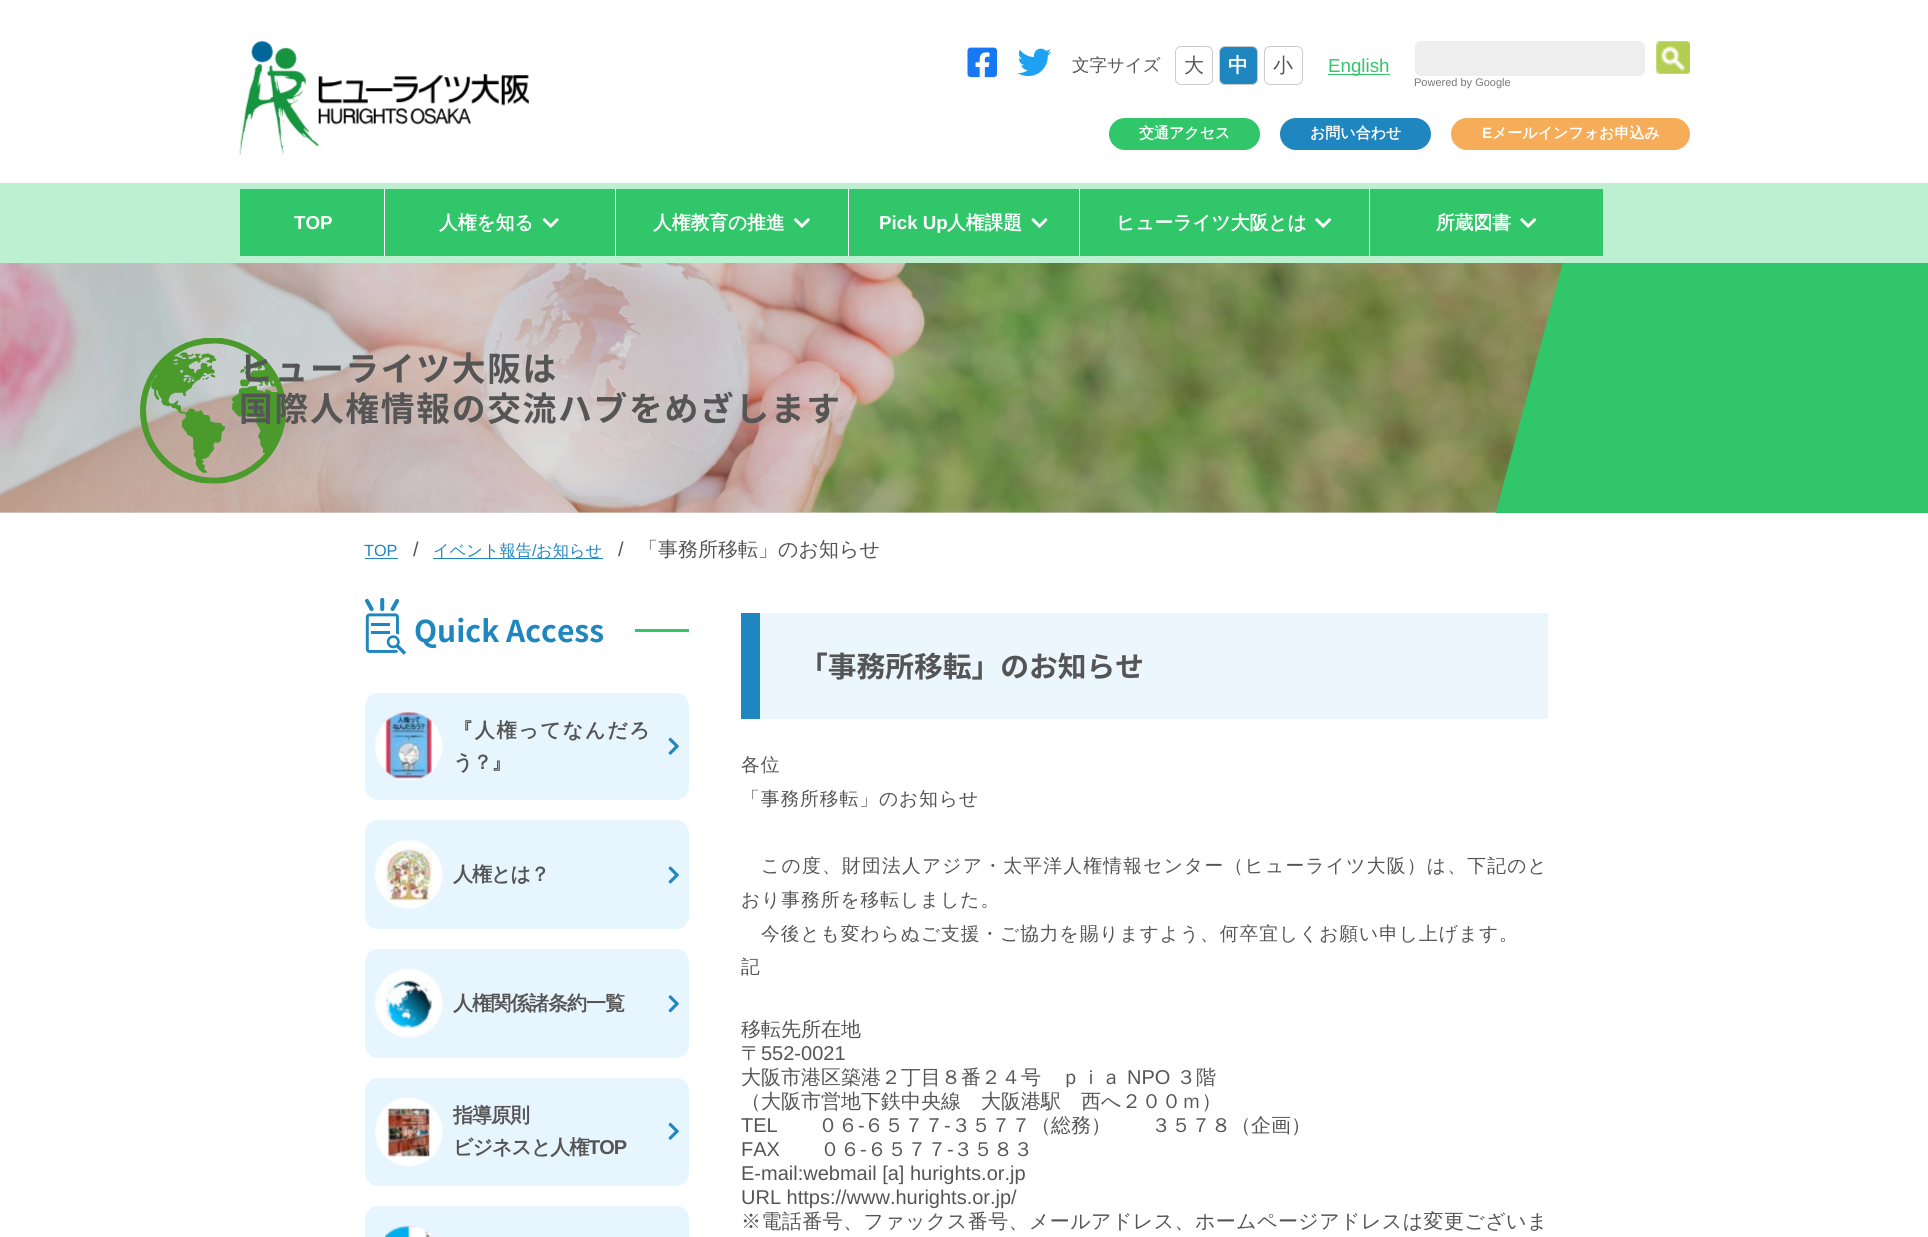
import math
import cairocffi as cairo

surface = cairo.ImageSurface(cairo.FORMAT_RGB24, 1928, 1237)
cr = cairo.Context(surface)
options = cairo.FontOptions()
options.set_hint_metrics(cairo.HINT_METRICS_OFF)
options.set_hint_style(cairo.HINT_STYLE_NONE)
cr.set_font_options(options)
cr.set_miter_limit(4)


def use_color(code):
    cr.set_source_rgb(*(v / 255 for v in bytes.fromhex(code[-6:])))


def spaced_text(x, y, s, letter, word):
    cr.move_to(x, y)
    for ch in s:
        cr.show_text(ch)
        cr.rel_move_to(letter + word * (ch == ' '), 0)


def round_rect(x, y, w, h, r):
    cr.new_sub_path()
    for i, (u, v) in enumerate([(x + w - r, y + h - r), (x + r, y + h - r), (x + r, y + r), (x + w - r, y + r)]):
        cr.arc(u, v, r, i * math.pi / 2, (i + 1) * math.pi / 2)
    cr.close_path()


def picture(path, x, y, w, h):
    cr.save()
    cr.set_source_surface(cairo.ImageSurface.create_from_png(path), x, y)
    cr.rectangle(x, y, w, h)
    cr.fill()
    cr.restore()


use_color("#ffffff")
cr.paint()
use_color("#dddddd")
cr.rectangle(0, 512, 1496, 1)
cr.fill()
use_color("#bdf0d1")
cr.rectangle(0, 183, 1928, 80)
cr.fill()
picture("img1.png", 239, 41, 290, 114)
picture("img2.png", 967, 47, 31, 31)
picture("img3.png", 1017, 48, 34, 29)
cr.select_font_face("WenQuanYi Zen Hei Medium")
cr.set_font_size(17.5)
use_color("#555555")
cr.move_to(1072, 71)
cr.show_text("文字サイズ")
round_rect(1175.5, 46.5, 37, 38, 5.5)
use_color("#cccccc")
cr.set_line_width(1)
cr.stroke()
cr.set_font_size(20)
use_color("#555555")
cr.move_to(1184, 72)
cr.show_text("大")
use_color("#2086bf")
round_rect(1219.5, 46.5, 38, 38, 5.5)
cr.fill_preserve()
use_color("#cccccc")
cr.stroke()
cr.select_font_face("WenQuanYi Zen Hei", cairo.FONT_SLANT_NORMAL, cairo.FONT_WEIGHT_BOLD)
use_color("#ffffff")
cr.move_to(1228, 72)
cr.show_text("中")
round_rect(1264.5, 46.5, 38, 38, 5.5)
use_color("#cccccc")
cr.stroke()
cr.select_font_face("WenQuanYi Zen Hei Medium")
use_color("#555555")
cr.move_to(1273, 72)
cr.show_text("小")
use_color("#30c669")
cr.rectangle(1328, 74, 62, 1)
cr.fill()
cr.select_font_face("Liberation Sans")
cr.set_font_size(18.75)
cr.move_to(1328, 72)
cr.show_text("English")
use_color("#eeeeee")
round_rect(1415, 41, 230, 35, 6)
cr.fill()
picture("img4.png", 1656, 41, 34, 33)
cr.set_font_size(11)
use_color("#777777")
cr.move_to(1414, 86)
cr.show_text("Powered by Google")
use_color("#30c669")
round_rect(1109, 118, 151, 32, 16)
cr.fill()
cr.select_font_face("WenQuanYi Zen Hei", cairo.FONT_SLANT_NORMAL, cairo.FONT_WEIGHT_BOLD)
cr.set_font_size(15)
use_color("#ffffff")
cr.move_to(1139, 138)
cr.show_text("交通アクセス")
use_color("#2086bf")
round_rect(1280, 118, 151, 32, 16)
cr.fill()
use_color("#ffffff")
cr.move_to(1310, 138)
cr.show_text("お問い合わせ")
use_color("#f5ad5a")
round_rect(1451, 118, 239, 32, 16)
cr.fill()
cr.select_font_face("Liberation Sans", cairo.FONT_SLANT_NORMAL, cairo.FONT_WEIGHT_BOLD)
use_color("#ffffff")
cr.move_to(1482, 138)
cr.show_text("E")
cr.select_font_face("WenQuanYi Zen Hei", cairo.FONT_SLANT_NORMAL, cairo.FONT_WEIGHT_BOLD)
cr.move_to(1492, 138)
cr.show_text("メールインフォお申込み")
use_color("#30c669")
cr.rectangle(240, 189, 144, 67)
cr.fill()
use_color("#ffffff")
cr.rectangle(384, 189, 1, 67)
cr.fill()
cr.select_font_face("Liberation Sans", cairo.FONT_SLANT_NORMAL, cairo.FONT_WEIGHT_BOLD)
cr.set_font_size(18.75)
cr.move_to(294, 229)
cr.show_text("TOP")
use_color("#30c669")
cr.rectangle(385, 189, 230, 67)
cr.fill()
use_color("#ffffff")
cr.rectangle(615, 189, 1, 67)
cr.fill()
cr.select_font_face("WenQuanYi Zen Hei", cairo.FONT_SLANT_NORMAL, cairo.FONT_WEIGHT_BOLD)
cr.move_to(439, 229)
cr.show_text("人権を知る")
picture("img5.png", 542, 218, 17, 10)
use_color("#30c669")
cr.rectangle(616, 189, 232, 67)
cr.fill()
use_color("#ffffff")
cr.rectangle(848, 189, 1, 67)
cr.fill()
cr.move_to(653, 229)
cr.show_text("人権教育の推進")
picture("img6.png", 794, 218, 16, 10)
use_color("#30c669")
cr.rectangle(849, 189, 230, 67)
cr.fill()
use_color("#ffffff")
cr.rectangle(1079, 189, 1, 67)
cr.fill()
cr.select_font_face("Liberation Sans", cairo.FONT_SLANT_NORMAL, cairo.FONT_WEIGHT_BOLD)
cr.move_to(879, 229)
cr.show_text("Pick Up")
cr.select_font_face("WenQuanYi Zen Hei", cairo.FONT_SLANT_NORMAL, cairo.FONT_WEIGHT_BOLD)
cr.move_to(947, 229)
cr.show_text("人権課題")
picture("img7.png", 1031, 218, 17, 10)
use_color("#30c669")
cr.rectangle(1080, 189, 289, 67)
cr.fill()
use_color("#ffffff")
cr.rectangle(1369, 189, 1, 67)
cr.fill()
cr.move_to(1116, 229)
cr.show_text("ヒューライツ大阪とは")
picture("img8.png", 1315, 218, 17, 10)
use_color("#30c669")
cr.rectangle(1370, 189, 233, 67)
cr.fill()
use_color("#ffffff")
cr.move_to(1436, 229)
cr.show_text("所蔵図書")
picture("img8.png", 1520, 218, 17, 10)
picture("img9.png", 0, 263, 1563, 250)
picture("img10.png", 140, 338, 146, 146)
cr.select_font_face("Noto Sans JP", cairo.FONT_SLANT_NORMAL, cairo.FONT_WEIGHT_BOLD)
cr.set_font_size(33.75)
use_color("#555555")
spaced_text(239, 381, "ヒューライツ大阪は", 1.7, 0)
spaced_text(239, 421, "国際人権情報の交流ハブをめざします", 1.7, 0)
cr.save()
cr.rectangle(0, 263, 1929, 250)
cr.clip()
use_color("#30c669")
cr.new_path()
cr.move_to(1653, -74)
cr.line_to(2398, 126)
cr.line_to(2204, 849)
cr.line_to(1459, 650)
cr.close_path()
cr.fill()
cr.restore()
cr.select_font_face("Liberation Sans")
cr.set_font_size(16.25)
use_color("#2086bf")
cr.move_to(364, 556)
cr.show_text("TOP")
cr.rectangle(365, 558, 33, 1)
cr.fill()
cr.set_font_size(20)
use_color("#555555")
cr.move_to(413, 556)
cr.show_text("/")
use_color("#2086bf")
cr.rectangle(433, 558, 170, 1)
cr.fill()
cr.select_font_face("WenQuanYi Zen Hei Medium")
cr.set_font_size(16.25)
cr.move_to(433, 556)
cr.show_text("イベント報告")
cr.select_font_face("Liberation Sans")
cr.move_to(532, 556)
cr.show_text("/")
cr.select_font_face("WenQuanYi Zen Hei Medium")
cr.move_to(536, 556)
cr.show_text("お知らせ")
cr.select_font_face("Liberation Sans")
cr.set_font_size(20)
use_color("#555555")
cr.move_to(618, 556)
cr.show_text("/")
cr.select_font_face("WenQuanYi Zen Hei Medium")
cr.move_to(638, 556)
cr.show_text("「事務所移転」のお知らせ")
picture("img11.png", 365, 598, 41, 57)
cr.select_font_face("Noto Sans JP", cairo.FONT_SLANT_NORMAL, cairo.FONT_WEIGHT_BOLD)
cr.set_font_size(30)
use_color("#2086bf")
cr.move_to(414, 642)
cr.show_text("Quick Access")
use_color("#30c669")
cr.rectangle(635, 629, 54, 3)
cr.fill()
use_color("#e7f5fe")
round_rect(365, 693, 324, 107, 13)
cr.fill()
picture("img12.png", 374, 712, 69, 69)
cr.select_font_face("WenQuanYi Zen Hei", cairo.FONT_SLANT_NORMAL, cairo.FONT_WEIGHT_BOLD)
cr.set_font_size(20)
use_color("#555555")
spaced_text(453, 737, "『人権ってなんだろ", 1.75, 0)
spaced_text(453, 769, "う？』", -1, 0)
picture("img13.png", 668, 737, 11, 18)
use_color("#e7f5fe")
round_rect(365, 820, 324, 109, 13)
cr.fill()
picture("img14.png", 374, 839, 69, 70)
use_color("#555555")
spaced_text(453, 881, "人権とは？", -1, 0)
picture("img15.png", 668, 866, 11, 18)
use_color("#e7f5fe")
round_rect(365, 949, 324, 109, 13)
cr.fill()
picture("img16.png", 374, 968, 69, 70)
use_color("#555555")
spaced_text(453, 1010, "人権関係諸条約一覧", -1, 0)
picture("img17.png", 668, 995, 11, 18)
use_color("#e7f5fe")
round_rect(365, 1078, 324, 108, 13)
cr.fill()
picture("img18.png", 375, 1097, 68, 70)
use_color("#555555")
spaced_text(453, 1122, "指導原則", -1, 0)
spaced_text(453, 1154, "ビジネスと人権", -1, 0)
cr.select_font_face("Liberation Sans", cairo.FONT_SLANT_NORMAL, cairo.FONT_WEIGHT_BOLD)
spaced_text(588, 1154, "TOP", -1, 0)
picture("img13.png", 668, 1122, 11, 18)
use_color("#e7f5fe")
round_rect(365, 1206, 324, 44, 13)
cr.fill()
picture("img19.png", 384, 1226, 50, 11)
use_color("#ebf6fd")
cr.rectangle(760, 613, 788, 106)
cr.fill()
use_color("#2086bf")
cr.rectangle(741, 613, 19, 106)
cr.fill()
cr.select_font_face("Noto Sans JP", cairo.FONT_SLANT_NORMAL, cairo.FONT_WEIGHT_BOLD)
cr.set_font_size(28.75)
use_color("#555555")
cr.move_to(799, 677)
cr.show_text("「事務所移転」のお知らせ")
cr.select_font_face("WenQuanYi Zen Hei Medium")
cr.set_font_size(18.75)
spaced_text(741, 771, "各位", 0.95, 0)
spaced_text(741, 805, "「事務所移転」のお知らせ", 0.95, 0)
spaced_text(761, 872, "この度、財団法人アジア・太平洋人権情報センター（ヒューライツ大阪）は、下記のと", 1.25, 0)
spaced_text(741, 906, "おり事務所を移転しました。", 0.95, 0)
spaced_text(761, 940, "今後とも変わらぬご支援・ご協力を賜りますよう、何卒宜しくお願い申し上げます。", 0.95, 0)
spaced_text(741, 973, "記", 0.95, 0)
cr.set_font_size(20)
cr.move_to(741, 1036)
cr.show_text("移転先所在地")
cr.move_to(741, 1060)
cr.show_text("〒")
cr.select_font_face("Liberation Sans")
cr.move_to(761, 1060)
cr.show_text("552-0021")
cr.select_font_face("WenQuanYi Zen Hei Medium")
cr.move_to(741, 1084)
cr.show_text("大阪市港区築港２丁目８番２４号　ｐｉａ")
cr.select_font_face("Liberation Sans")
cr.move_to(1127, 1084)
cr.show_text("NPO")
cr.select_font_face("WenQuanYi Zen Hei Medium")
cr.move_to(1176, 1084)
cr.show_text("３階")
cr.move_to(741, 1108)
cr.show_text("（大阪市営地下鉄中央線　大阪港駅　西へ２００ｍ）")
cr.select_font_face("Liberation Sans")
cr.move_to(741, 1132)
cr.show_text("TEL")
cr.select_font_face("WenQuanYi Zen Hei Medium")
cr.move_to(818, 1132)
cr.show_text("０６")
cr.select_font_face("Liberation Sans")
cr.move_to(858, 1132)
cr.show_text("-")
cr.select_font_face("WenQuanYi Zen Hei Medium")
cr.move_to(864, 1132)
cr.show_text("６５７７")
cr.select_font_face("Liberation Sans")
cr.move_to(944, 1132)
cr.show_text("-")
cr.select_font_face("WenQuanYi Zen Hei Medium")
cr.move_to(951, 1132)
cr.show_text("３５７７（総務）　　３５７８（企画）")
cr.select_font_face("Liberation Sans")
cr.move_to(741, 1156)
cr.show_text("FAX")
cr.select_font_face("WenQuanYi Zen Hei Medium")
cr.move_to(820, 1156)
cr.show_text("０６")
cr.select_font_face("Liberation Sans")
cr.move_to(860, 1156)
cr.show_text("-")
cr.select_font_face("WenQuanYi Zen Hei Medium")
cr.move_to(867, 1156)
cr.show_text("６５７７")
cr.select_font_face("Liberation Sans")
cr.move_to(947, 1156)
cr.show_text("-")
cr.select_font_face("WenQuanYi Zen Hei Medium")
cr.move_to(953, 1156)
cr.show_text("３５８３")
cr.select_font_face("Liberation Sans")
cr.move_to(741, 1180)
cr.show_text("E-mail:webmail [a] hurights.or.jp")
cr.move_to(741, 1204)
cr.show_text("URL https://www.hurights.or.jp/")
cr.select_font_face("WenQuanYi Zen Hei Medium")
spaced_text(741, 1228, "※電話番号、ファックス番号、メールアドレス、ホームページアドレスは変更ございま", 0.4, 0)
surface.write_to_png("result.png")
